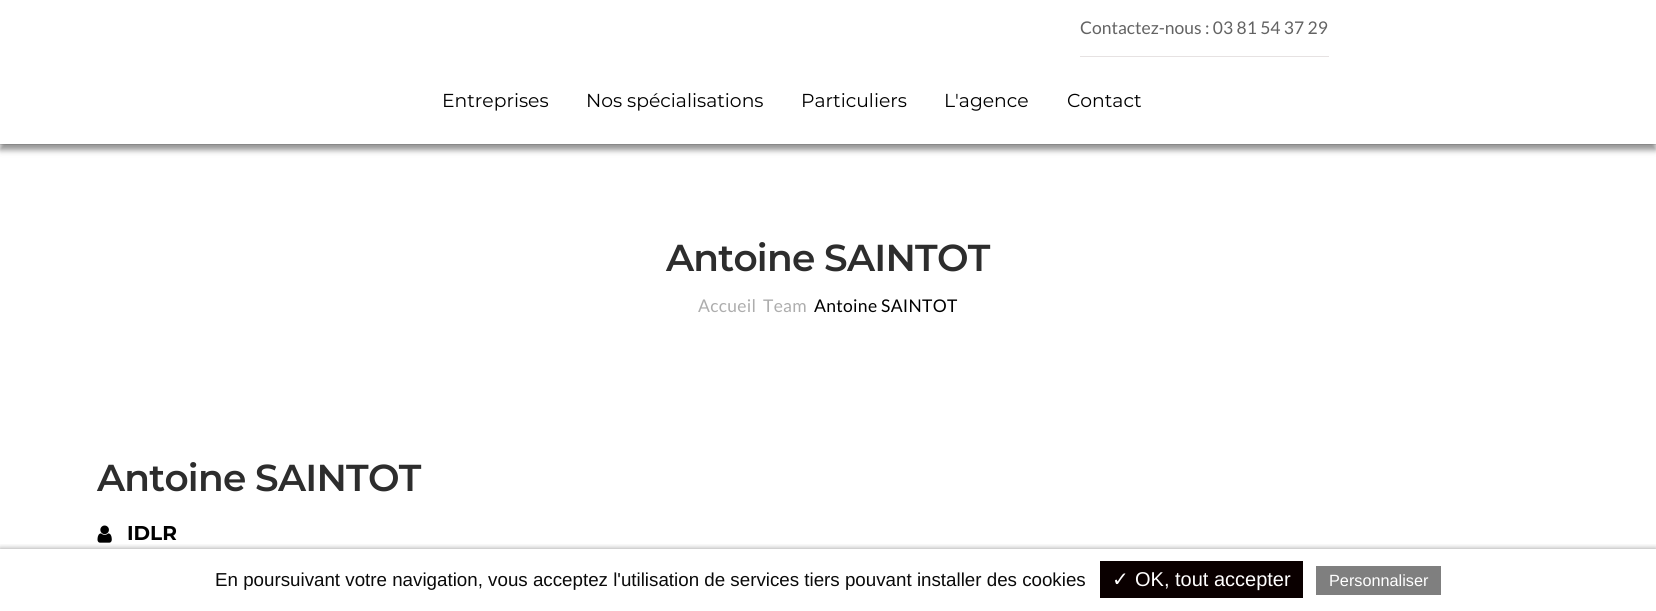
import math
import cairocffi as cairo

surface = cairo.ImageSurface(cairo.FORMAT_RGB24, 1656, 611)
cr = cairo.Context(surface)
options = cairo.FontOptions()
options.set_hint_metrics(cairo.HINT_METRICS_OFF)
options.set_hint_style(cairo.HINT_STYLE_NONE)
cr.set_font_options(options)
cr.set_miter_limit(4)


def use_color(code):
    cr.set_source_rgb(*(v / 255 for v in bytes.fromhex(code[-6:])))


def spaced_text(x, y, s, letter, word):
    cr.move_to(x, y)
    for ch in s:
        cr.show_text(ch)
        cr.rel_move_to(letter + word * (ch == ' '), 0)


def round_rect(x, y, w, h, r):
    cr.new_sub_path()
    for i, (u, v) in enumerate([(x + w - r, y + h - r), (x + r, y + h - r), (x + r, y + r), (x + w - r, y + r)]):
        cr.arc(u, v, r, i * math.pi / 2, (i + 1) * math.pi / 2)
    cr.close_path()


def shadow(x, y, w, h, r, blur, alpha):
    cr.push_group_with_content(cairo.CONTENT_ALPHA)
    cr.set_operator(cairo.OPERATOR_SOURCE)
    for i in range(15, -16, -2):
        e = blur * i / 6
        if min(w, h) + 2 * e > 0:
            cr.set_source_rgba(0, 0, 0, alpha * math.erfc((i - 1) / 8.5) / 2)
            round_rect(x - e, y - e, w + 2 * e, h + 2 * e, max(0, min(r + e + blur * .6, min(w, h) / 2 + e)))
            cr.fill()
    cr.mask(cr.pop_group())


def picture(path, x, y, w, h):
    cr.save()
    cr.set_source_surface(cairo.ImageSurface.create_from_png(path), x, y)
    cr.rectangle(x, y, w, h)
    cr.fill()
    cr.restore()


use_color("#ffffff")
cr.paint()
cr.save()
cr.set_fill_rule(cairo.FILL_RULE_EVEN_ODD)
cr.new_path()
cr.move_to(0, 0)
cr.line_to(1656, 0)
cr.line_to(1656, 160)
cr.line_to(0, 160)
cr.close_path()
cr.move_to(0, 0)
cr.line_to(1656, 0)
cr.line_to(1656, 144)
cr.line_to(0, 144)
cr.close_path()
cr.clip()
use_color("#000000")
shadow(0, 6, 1656, 144, 0, 3, 0.42)
cr.restore()
use_color("#e6e2e2")
cr.rectangle(1080, 56, 249, 1)
cr.fill()
cr.select_font_face("Lato")
cr.set_font_size(17.5)
use_color("#636363")
cr.move_to(1080, 34)
cr.show_text("Contactez-nous : 03 81 54 37 29")
cr.select_font_face("Montserrat")
cr.set_font_size(18.75)
use_color("#000000")
cr.move_to(442, 107)
cr.show_text("Entreprises")
cr.move_to(586, 107)
cr.show_text("Nos spécialisations")
cr.move_to(801, 107)
cr.show_text("Particuliers")
cr.move_to(944, 107)
cr.show_text("L'agence")
cr.move_to(1067, 107)
cr.show_text("Contact")
cr.set_source_rgba(0, 0, 0, 0.1)
cr.rectangle(0, 144, 1656, 1)
cr.fill()
cr.select_font_face("Montserrat SemiBold")
cr.set_font_size(37.5)
use_color("#2d2d2d")
spaced_text(666, 271, "Antoine SAINTOT", -0.75, 0)
cr.select_font_face("Lato")
cr.set_font_size(17.5)
use_color("#adadad")
spaced_text(698, 312, "Accueil", 0.3, 0)
spaced_text(763, 312, "Team", 0.3, 0)
use_color("#000000")
spaced_text(814, 312, "Antoine SAINTOT", 0.3, 0)
cr.select_font_face("Montserrat SemiBold")
cr.set_font_size(37.5)
use_color("#2d2d2d")
spaced_text(97, 491, "Antoine SAINTOT", -0.75, 0)
picture("img1.png", 97, 525, 15, 18)
cr.select_font_face("Montserrat", cairo.FONT_SLANT_NORMAL, cairo.FONT_WEIGHT_BOLD)
cr.set_font_size(20)
use_color("#000000")
cr.move_to(127, 540)
cr.show_text("IDLR")
cr.save()
cr.rectangle(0, 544, 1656, 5)
cr.clip()
use_color("#000000")
shadow(0, 549, 1656, 62, 0, 3, 0.42)
cr.restore()
cr.select_font_face("Liberation Sans")
cr.set_font_size(18.75)
use_color("#0a0a0a")
cr.move_to(215, 586)
cr.show_text("En poursuivant votre navigation, vous acceptez l'utilisation de services tiers pouvant installer des cookies")
use_color("#0a0000")
cr.rectangle(1100, 561, 203, 37)
cr.fill()
cr.select_font_face("DejaVu Sans")
cr.set_font_size(20)
use_color("#ffffff")
cr.move_to(1112, 586)
cr.show_text("✓")
cr.select_font_face("Liberation Sans")
cr.move_to(1135, 586)
cr.show_text("OK, tout accepter")
use_color("#7f7f7f")
cr.rectangle(1316, 566, 125, 29)
cr.fill()
cr.set_font_size(16.25)
use_color("#ffffff")
cr.move_to(1329, 586)
cr.show_text("Personnaliser")
surface.write_to_png("result.png")
